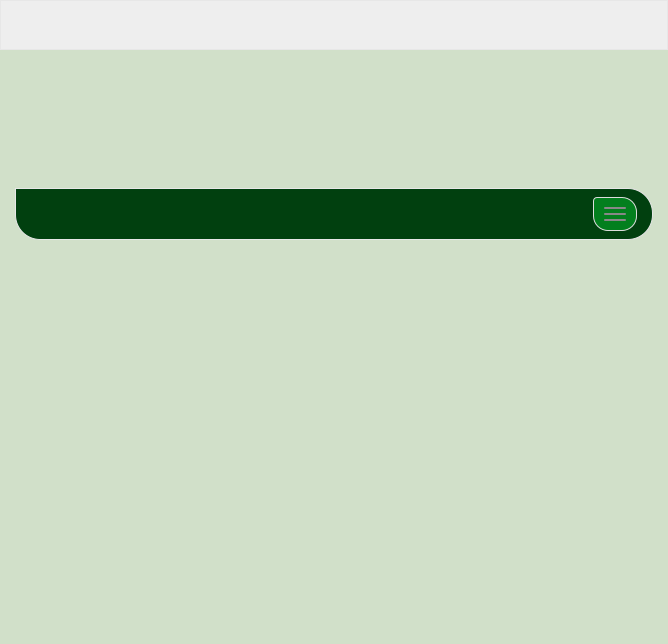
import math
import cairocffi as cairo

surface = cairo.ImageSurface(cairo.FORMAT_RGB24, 668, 644)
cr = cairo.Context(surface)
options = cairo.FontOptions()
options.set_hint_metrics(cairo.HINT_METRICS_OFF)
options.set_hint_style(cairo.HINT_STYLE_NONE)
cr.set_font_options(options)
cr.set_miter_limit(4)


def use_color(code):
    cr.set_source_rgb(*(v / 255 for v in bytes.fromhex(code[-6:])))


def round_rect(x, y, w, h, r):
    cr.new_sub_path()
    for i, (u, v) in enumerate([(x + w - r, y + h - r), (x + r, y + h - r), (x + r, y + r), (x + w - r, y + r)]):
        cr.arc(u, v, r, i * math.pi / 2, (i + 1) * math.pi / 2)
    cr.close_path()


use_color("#d1e0c9")
cr.paint()
use_color("#eeeeee")
cr.rectangle(0.5, 0.5, 667, 49)
cr.fill_preserve()
use_color("#e7e7e7")
cr.set_line_width(1)
cr.stroke()
use_color("#01400f")
cr.new_path()
cr.move_to(15.5, 188.5)
cr.line_to(628, 188.5)
cr.curve_to(641.5, 188.5, 652.5, 199.5, 652.5, 213)
cr.line_to(652.5, 215)
cr.curve_to(652.5, 228.5, 641.5, 239.5, 628, 239.5)
cr.line_to(40, 239.5)
cr.curve_to(26.5, 239.5, 15.5, 228.5, 15.5, 215)
cr.close_path()
cr.fill_preserve()
use_color("#e7e7e7")
cr.stroke()
use_color("#037f1e")
cr.new_path()
cr.move_to(597, 197.5)
cr.line_to(622, 197.5)
cr.curve_to(630, 197.5, 636.5, 204, 636.5, 212)
cr.line_to(636.5, 216)
cr.curve_to(636.5, 224, 630, 230.5, 622, 230.5)
cr.line_to(608, 230.5)
cr.curve_to(600, 230.5, 593.5, 224, 593.5, 216)
cr.line_to(593.5, 201)
cr.curve_to(593.5, 199, 595, 197.5, 597, 197.5)
cr.close_path()
cr.fill_preserve()
use_color("#dddddd")
cr.stroke()
use_color("#888888")
round_rect(604, 207, 22, 2, 1)
cr.fill()
round_rect(604, 213, 22, 2, 1)
cr.fill()
round_rect(604, 219, 22, 2, 1)
cr.fill()
surface.write_to_png("result.png")
